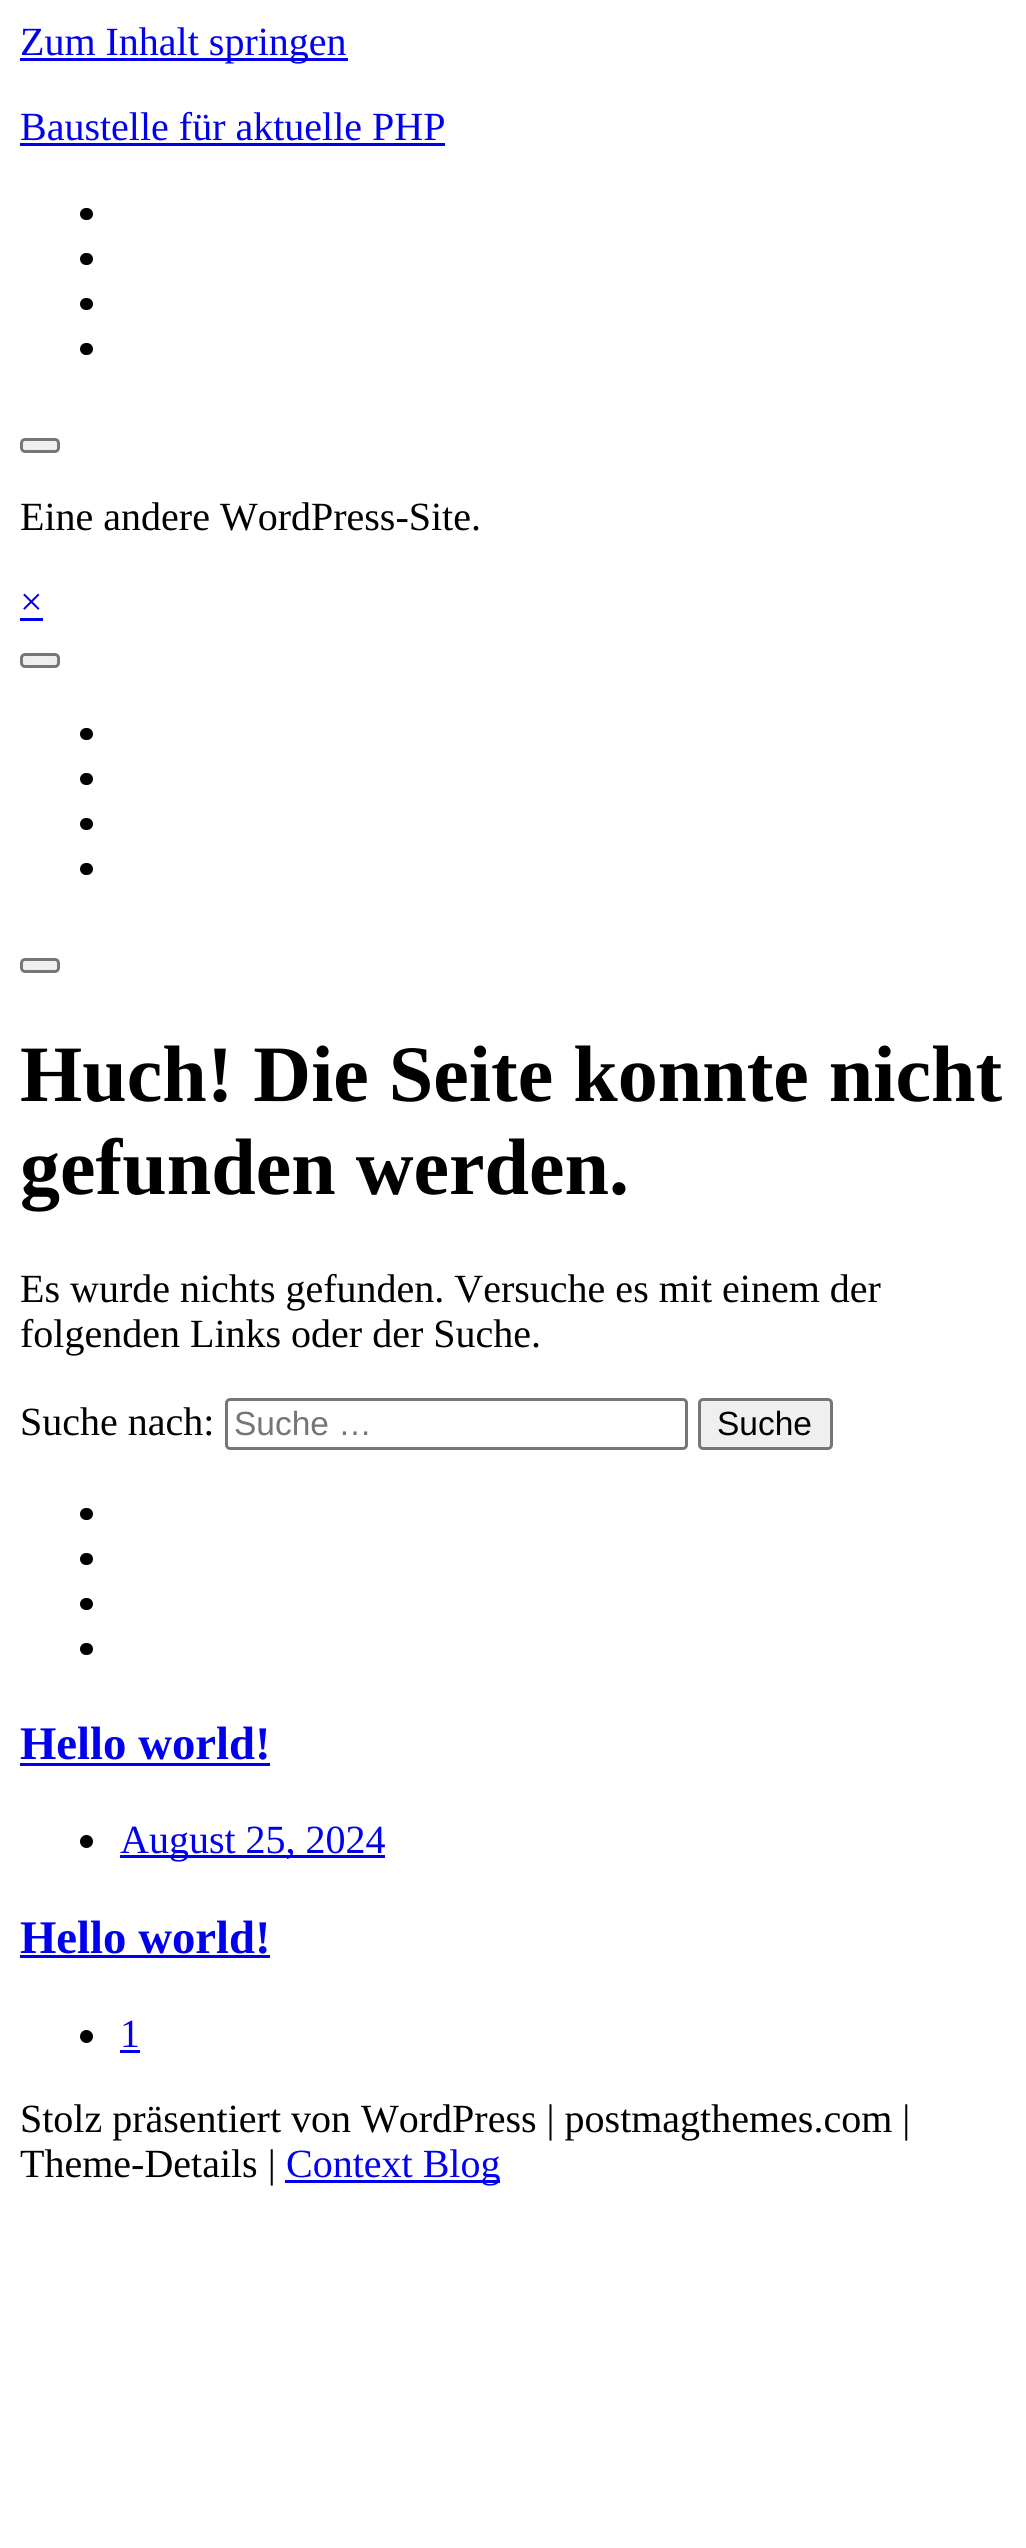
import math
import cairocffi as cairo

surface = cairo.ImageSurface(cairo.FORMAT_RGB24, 1026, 2548)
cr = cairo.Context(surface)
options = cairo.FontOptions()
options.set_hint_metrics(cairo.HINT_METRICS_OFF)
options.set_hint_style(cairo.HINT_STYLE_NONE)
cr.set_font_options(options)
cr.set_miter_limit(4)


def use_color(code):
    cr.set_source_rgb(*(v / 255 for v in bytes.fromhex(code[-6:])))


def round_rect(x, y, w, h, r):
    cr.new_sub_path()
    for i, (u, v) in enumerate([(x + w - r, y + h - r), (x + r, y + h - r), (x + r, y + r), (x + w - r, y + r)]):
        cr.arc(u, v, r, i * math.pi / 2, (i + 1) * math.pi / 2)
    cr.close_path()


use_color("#ffffff")
cr.paint()
use_color("#0000ee")
cr.rectangle(20, 58, 328, 3)
cr.fill()
cr.select_font_face("Liberation Serif")
cr.set_font_size(40)
cr.move_to(20, 55)
cr.show_text("Zum Inhalt springen")
cr.move_to(20, 140)
cr.show_text("Baustelle für aktuelle PHP")
cr.rectangle(20, 143, 425, 3)
cr.fill()
use_color("#000000")
round_rect(80, 208, 13, 12, 6)
cr.fill()
round_rect(80, 253, 13, 12, 6)
cr.fill()
round_rect(80, 298, 13, 12, 6)
cr.fill()
round_rect(80, 343, 13, 12, 6)
cr.fill()
use_color("#efefef")
round_rect(21.5, 439.5, 37, 12, 3.5)
cr.fill_preserve()
use_color("#767676")
cr.set_line_width(3)
cr.stroke()
use_color("#000000")
cr.move_to(20, 530)
cr.show_text("Eine andere WordPress-Site.")
use_color("#0000ee")
cr.move_to(20, 615)
cr.show_text("×")
cr.rectangle(20, 618, 23, 3)
cr.fill()
use_color("#efefef")
round_rect(21.5, 654.5, 37, 12, 3.5)
cr.fill_preserve()
use_color("#767676")
cr.stroke()
use_color("#000000")
round_rect(80, 728, 13, 12, 6)
cr.fill()
round_rect(80, 773, 13, 12, 6)
cr.fill()
round_rect(80, 818, 13, 12, 6)
cr.fill()
round_rect(80, 863, 13, 12, 6)
cr.fill()
use_color("#efefef")
round_rect(21.5, 959.5, 37, 12, 3.5)
cr.fill_preserve()
use_color("#767676")
cr.stroke()
cr.select_font_face("Liberation Serif", cairo.FONT_SLANT_NORMAL, cairo.FONT_WEIGHT_BOLD)
cr.set_font_size(80)
use_color("#000000")
cr.move_to(20, 1101)
cr.show_text("Huch! Die Seite konnte nicht")
cr.move_to(20, 1194)
cr.show_text("gefunden werden.")
cr.select_font_face("Liberation Serif")
cr.set_font_size(40)
cr.move_to(20, 1302)
cr.show_text("Es wurde nichts gefunden. Versuche es mit einem der")
cr.move_to(20, 1347)
cr.show_text("folgenden Links oder der Suche.")
cr.move_to(20, 1435)
cr.show_text("Suche nach:")
round_rect(226.5, 1399.5, 460, 49, 3.5)
use_color("#767676")
cr.stroke()
cr.select_font_face("Liberation Sans")
cr.set_font_size(33.5)
use_color("#757575")
cr.move_to(234, 1435)
cr.show_text("Suche …")
use_color("#efefef")
round_rect(699.5, 1399.5, 132, 49, 3.5)
cr.fill_preserve()
use_color("#767676")
cr.stroke()
use_color("#000000")
cr.move_to(717, 1435)
cr.show_text("Suche")
round_rect(80, 1508, 13, 12, 6)
cr.fill()
round_rect(80, 1553, 13, 12, 6)
cr.fill()
round_rect(80, 1598, 13, 12, 6)
cr.fill()
round_rect(80, 1643, 13, 12, 6)
cr.fill()
cr.select_font_face("Liberation Serif", cairo.FONT_SLANT_NORMAL, cairo.FONT_WEIGHT_BOLD)
cr.set_font_size(46.75)
use_color("#0000ee")
cr.move_to(20, 1759)
cr.show_text("Hello world!")
cr.rectangle(20, 1763, 250, 3)
cr.fill()
use_color("#000000")
cr.arc(86.5, 1841.5, 6.5, 0, 2 * math.pi)
cr.fill()
use_color("#0000ee")
cr.rectangle(120, 1855, 265, 3)
cr.fill()
cr.select_font_face("Liberation Serif")
cr.set_font_size(40)
cr.move_to(120, 1853)
cr.show_text("August 25, 2024")
cr.select_font_face("Liberation Serif", cairo.FONT_SLANT_NORMAL, cairo.FONT_WEIGHT_BOLD)
cr.set_font_size(46.75)
cr.move_to(20, 1953)
cr.show_text("Hello world!")
cr.rectangle(20, 1955, 250, 3)
cr.fill()
use_color("#000000")
cr.arc(86.5, 2036.5, 6.5, 0, 2 * math.pi)
cr.fill()
cr.select_font_face("Liberation Serif")
cr.set_font_size(40)
use_color("#0000ee")
cr.move_to(120, 2047)
cr.show_text("1")
cr.rectangle(120, 2050, 20, 3)
cr.fill()
use_color("#000000")
cr.move_to(20, 2132)
cr.show_text("Stolz präsentiert von WordPress | postmagthemes.com |")
cr.move_to(20, 2177)
cr.show_text("Theme-Details |")
use_color("#0000ee")
cr.rectangle(285, 2180, 215, 3)
cr.fill()
cr.move_to(286, 2177)
cr.show_text("Context Blog")
surface.write_to_png("result.png")
